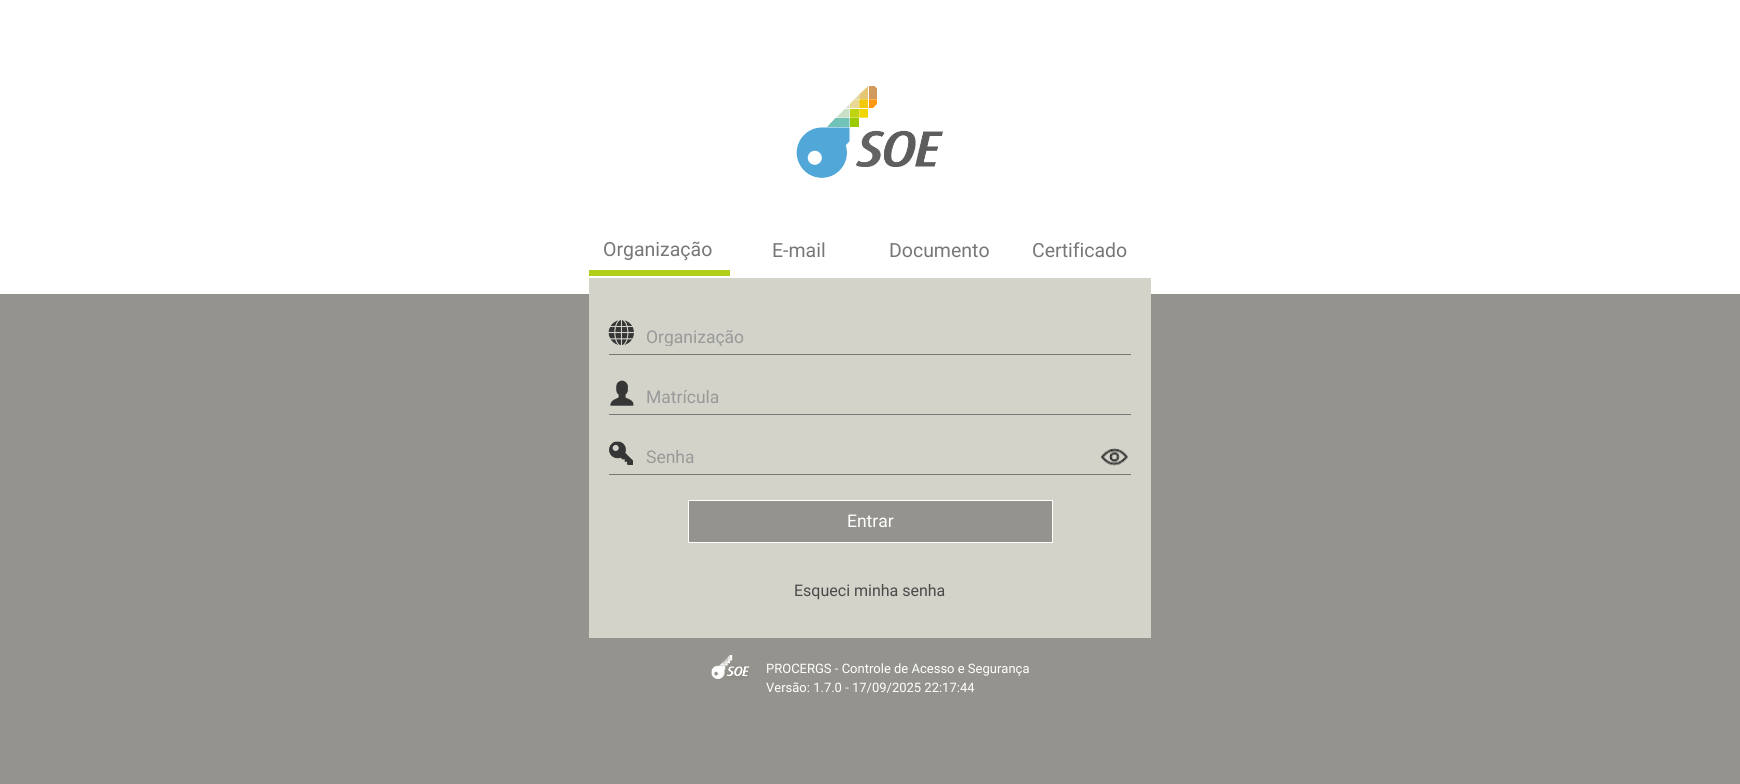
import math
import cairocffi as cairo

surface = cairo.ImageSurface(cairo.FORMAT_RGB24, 1740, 784)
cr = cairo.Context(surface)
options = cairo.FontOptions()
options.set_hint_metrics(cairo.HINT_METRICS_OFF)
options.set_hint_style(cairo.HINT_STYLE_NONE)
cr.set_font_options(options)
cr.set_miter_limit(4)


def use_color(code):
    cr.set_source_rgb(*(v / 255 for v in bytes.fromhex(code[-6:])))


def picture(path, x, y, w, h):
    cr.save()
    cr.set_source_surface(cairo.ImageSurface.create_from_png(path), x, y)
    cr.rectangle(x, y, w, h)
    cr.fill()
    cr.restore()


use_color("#94938d")
cr.paint()
use_color("#ffffff")
cr.rectangle(0, 0, 1740, 294)
cr.fill()
picture("img1.png", 796, 86, 147, 92)
use_color("#b2cf18")
cr.rectangle(589, 270, 141, 6)
cr.fill()
cr.select_font_face("Roboto")
cr.set_font_size(19.5)
use_color("#777777")
cr.move_to(603, 256)
cr.show_text("Organização")
cr.move_to(772, 257)
cr.show_text("E-mail")
cr.move_to(889, 257)
cr.show_text("Documento")
cr.move_to(1032, 257)
cr.show_text("Certificado")
use_color("#d4d3ca")
cr.rectangle(589, 278, 562, 360)
cr.fill()
use_color("#777777")
cr.rectangle(609, 354, 522, 1)
cr.fill()
picture("img2.png", 608, 320, 26, 25)
cr.save()
cr.rectangle(646, 326, 470, 20)
cr.clip()
cr.set_font_size(17.5)
use_color("#999999")
cr.move_to(646, 343)
cr.show_text("Organização")
cr.restore()
cr.rectangle(609, 414, 522, 1)
cr.fill()
picture("img3.png", 610, 380, 24, 26)
cr.set_font_size(17.5)
use_color("#999999")
cr.move_to(646, 403)
cr.show_text("Matrícula")
use_color("#777777")
cr.rectangle(609, 474, 522, 1)
cr.fill()
picture("img4.png", 609, 441, 24, 24)
use_color("#999999")
cr.move_to(646, 463)
cr.show_text("Senha")
picture("img5.png", 1101, 448, 27, 18)
use_color("#94938d")
cr.rectangle(688.5, 500.5, 364, 42)
cr.fill_preserve()
use_color("#ffffff")
cr.set_line_width(1)
cr.stroke()
cr.move_to(847, 527)
cr.show_text("Entrar")
cr.set_font_size(16)
use_color("#4a4a4a")
cr.move_to(794, 596)
cr.show_text("Esqueci minha senha")
picture("img6.png", 711, 655, 39, 25)
cr.set_font_size(13)
use_color("#ffffff")
cr.move_to(766, 673)
cr.show_text("PROCERGS - Controle de Acesso e Segurança")
cr.move_to(766, 692)
cr.show_text("Versão: 1.7.0 - 17/09/2025 22:17:44")
surface.write_to_png("result.png")
